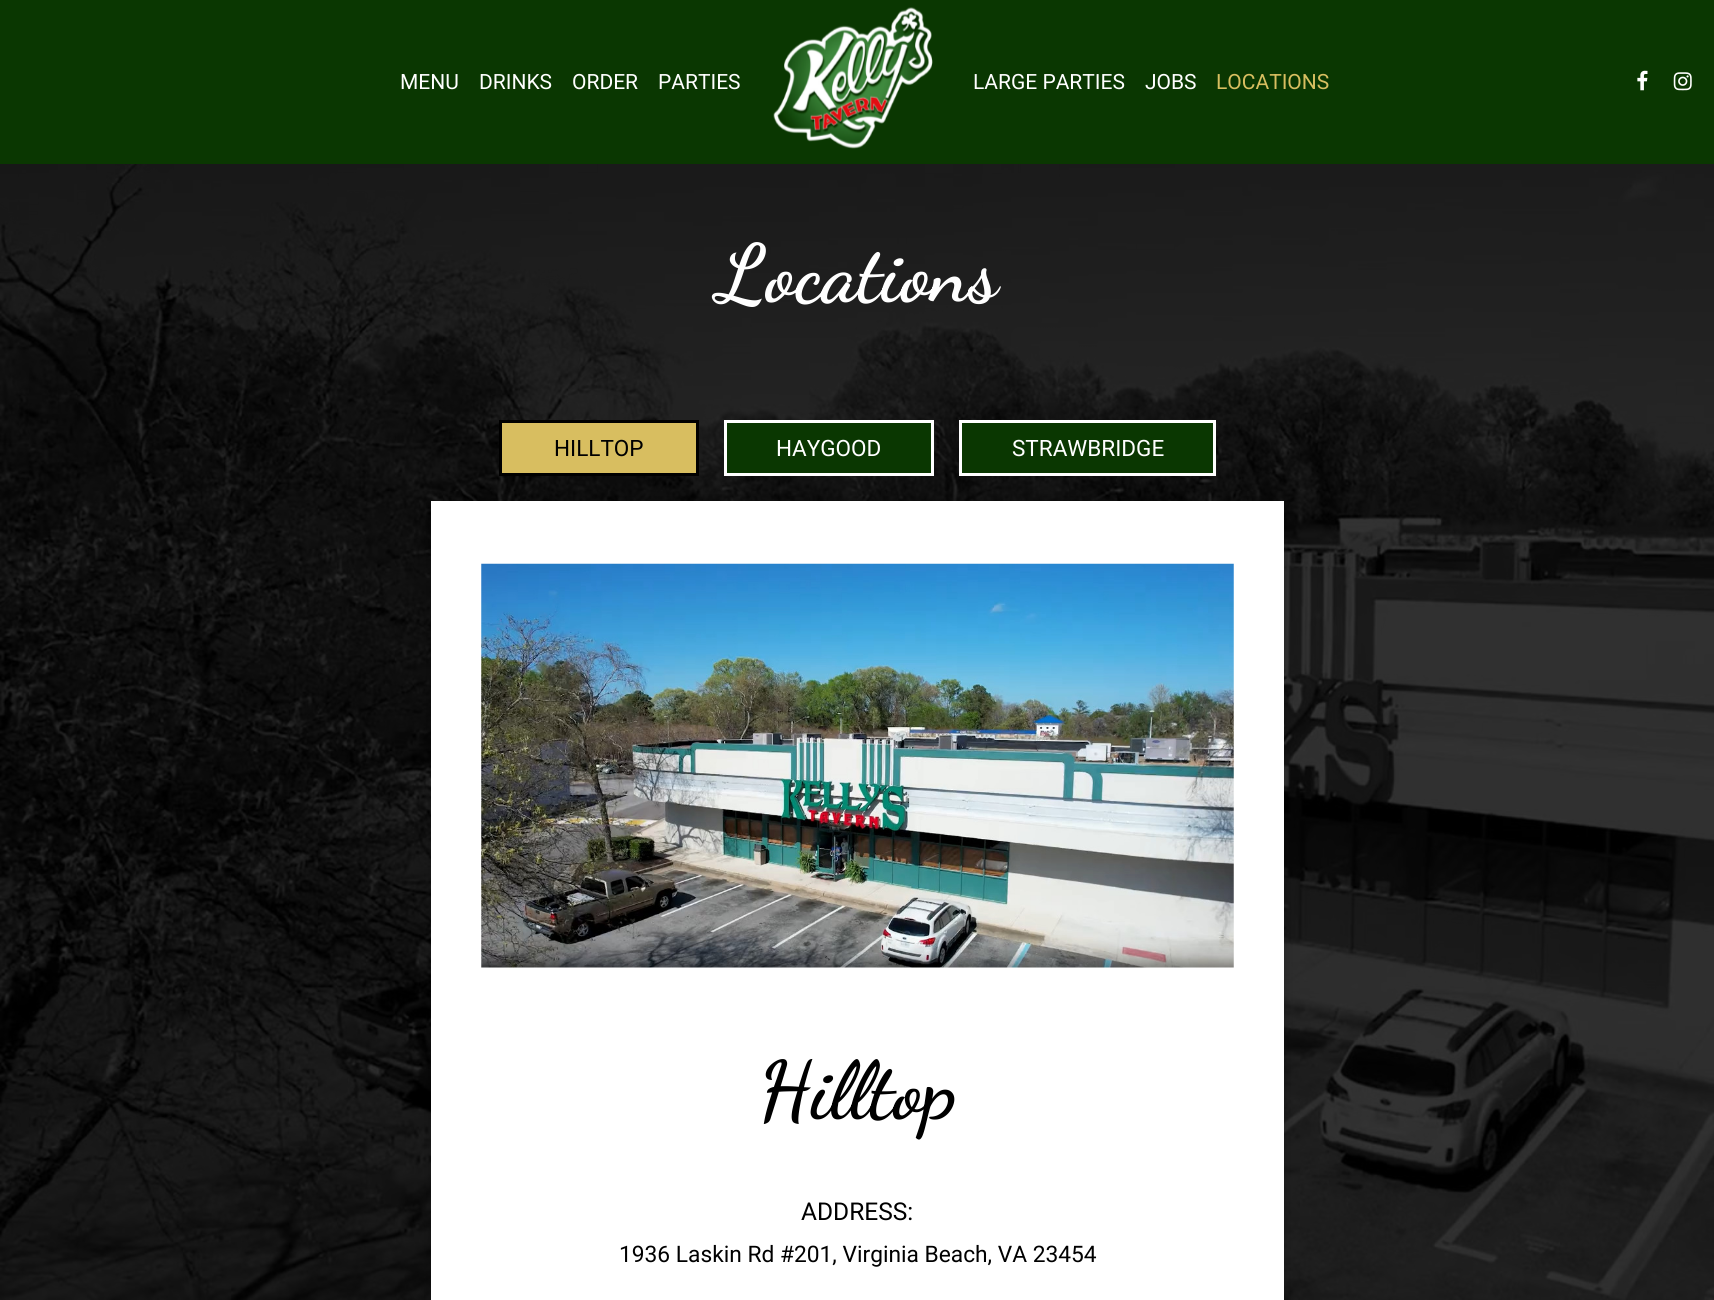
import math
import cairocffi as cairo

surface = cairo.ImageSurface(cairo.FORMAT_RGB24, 1714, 1300)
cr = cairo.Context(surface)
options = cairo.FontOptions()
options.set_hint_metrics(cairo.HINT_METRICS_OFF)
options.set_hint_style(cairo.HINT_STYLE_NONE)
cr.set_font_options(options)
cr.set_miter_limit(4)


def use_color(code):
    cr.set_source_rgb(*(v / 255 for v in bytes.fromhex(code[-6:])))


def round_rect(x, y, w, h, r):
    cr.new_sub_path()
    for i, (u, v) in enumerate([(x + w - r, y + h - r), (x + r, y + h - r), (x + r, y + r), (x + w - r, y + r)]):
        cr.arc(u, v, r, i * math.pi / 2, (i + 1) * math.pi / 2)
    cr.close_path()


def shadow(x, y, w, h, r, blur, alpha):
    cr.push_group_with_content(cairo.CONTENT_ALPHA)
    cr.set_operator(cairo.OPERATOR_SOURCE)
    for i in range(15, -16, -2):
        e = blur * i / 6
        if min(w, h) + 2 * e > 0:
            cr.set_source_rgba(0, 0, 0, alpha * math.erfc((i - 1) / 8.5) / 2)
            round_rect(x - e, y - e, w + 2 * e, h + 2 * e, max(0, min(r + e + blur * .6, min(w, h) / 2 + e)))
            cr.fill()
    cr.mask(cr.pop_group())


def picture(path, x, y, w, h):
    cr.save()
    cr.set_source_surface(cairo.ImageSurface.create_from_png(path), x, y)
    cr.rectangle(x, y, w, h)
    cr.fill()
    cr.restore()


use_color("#000000")
cr.paint()
use_color("#0a3701")
cr.rectangle(0, 0, 1714, 164)
cr.fill()
cr.select_font_face("Roboto")
cr.set_font_size(21)
use_color("#ffffff")
cr.move_to(400, 89)
cr.show_text("MENU")
cr.move_to(479, 89)
cr.show_text("DRINKS")
cr.move_to(572, 89)
cr.show_text("ORDER")
cr.move_to(658, 89)
cr.show_text("PARTIES")
picture("img1.png", 773, 7, 160, 142)
cr.move_to(973, 89)
cr.show_text("LARGE PARTIES")
cr.move_to(1145, 89)
cr.show_text("JOBS")
use_color("#d8be60")
cr.move_to(1216, 89)
cr.show_text("LOCATIONS")
picture("img2.png", 1637, 70, 11, 21)
picture("img3.png", 1673, 72, 19, 19)
picture("img5.png", 0, 164, 1714, 1136)
cr.select_font_face("Dancing Script", cairo.FONT_SLANT_NORMAL, cairo.FONT_WEIGHT_BOLD)
cr.set_font_size(80.5)
use_color("#ffffff")
cr.move_to(717, 300)
cr.show_text("Locations")
use_color("#d8be60")
cr.rectangle(500.5, 421.5, 197, 53)
cr.fill_preserve()
use_color("#000000")
cr.set_line_width(3)
cr.stroke()
cr.select_font_face("Roboto")
cr.set_font_size(22.5)
cr.move_to(554, 456)
cr.show_text("HILLTOP")
use_color("#0a3701")
cr.rectangle(725.5, 421.5, 207, 53)
cr.fill_preserve()
use_color("#ffffff")
cr.stroke()
cr.move_to(776, 456)
cr.show_text("HAYGOOD")
use_color("#0a3701")
cr.rectangle(960.5, 421.5, 254, 53)
cr.fill_preserve()
use_color("#ffffff")
cr.stroke()
cr.move_to(1012, 456)
cr.show_text("STRAWBRIDGE")
use_color("#000000")
shadow(431, 501, 853, 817, 0, 6, 0.2)
use_color("#ffffff")
cr.rectangle(431, 501, 853, 799)
cr.fill()
picture("img4.png", 481, 563, 753, 405)
cr.select_font_face("Dancing Script", cairo.FONT_SLANT_NORMAL, cairo.FONT_WEIGHT_BOLD)
cr.set_font_size(80.5)
use_color("#000000")
cr.move_to(758, 1117)
cr.show_text("Hilltop")
cr.select_font_face("Roboto")
cr.set_font_size(24.5)
cr.move_to(801, 1220)
cr.show_text("ADDRESS:")
cr.set_font_size(22.75)
cr.move_to(619, 1262)
cr.show_text("1936 Laskin Rd #201, Virginia Beach, VA 23454")
surface.write_to_png("result.png")
